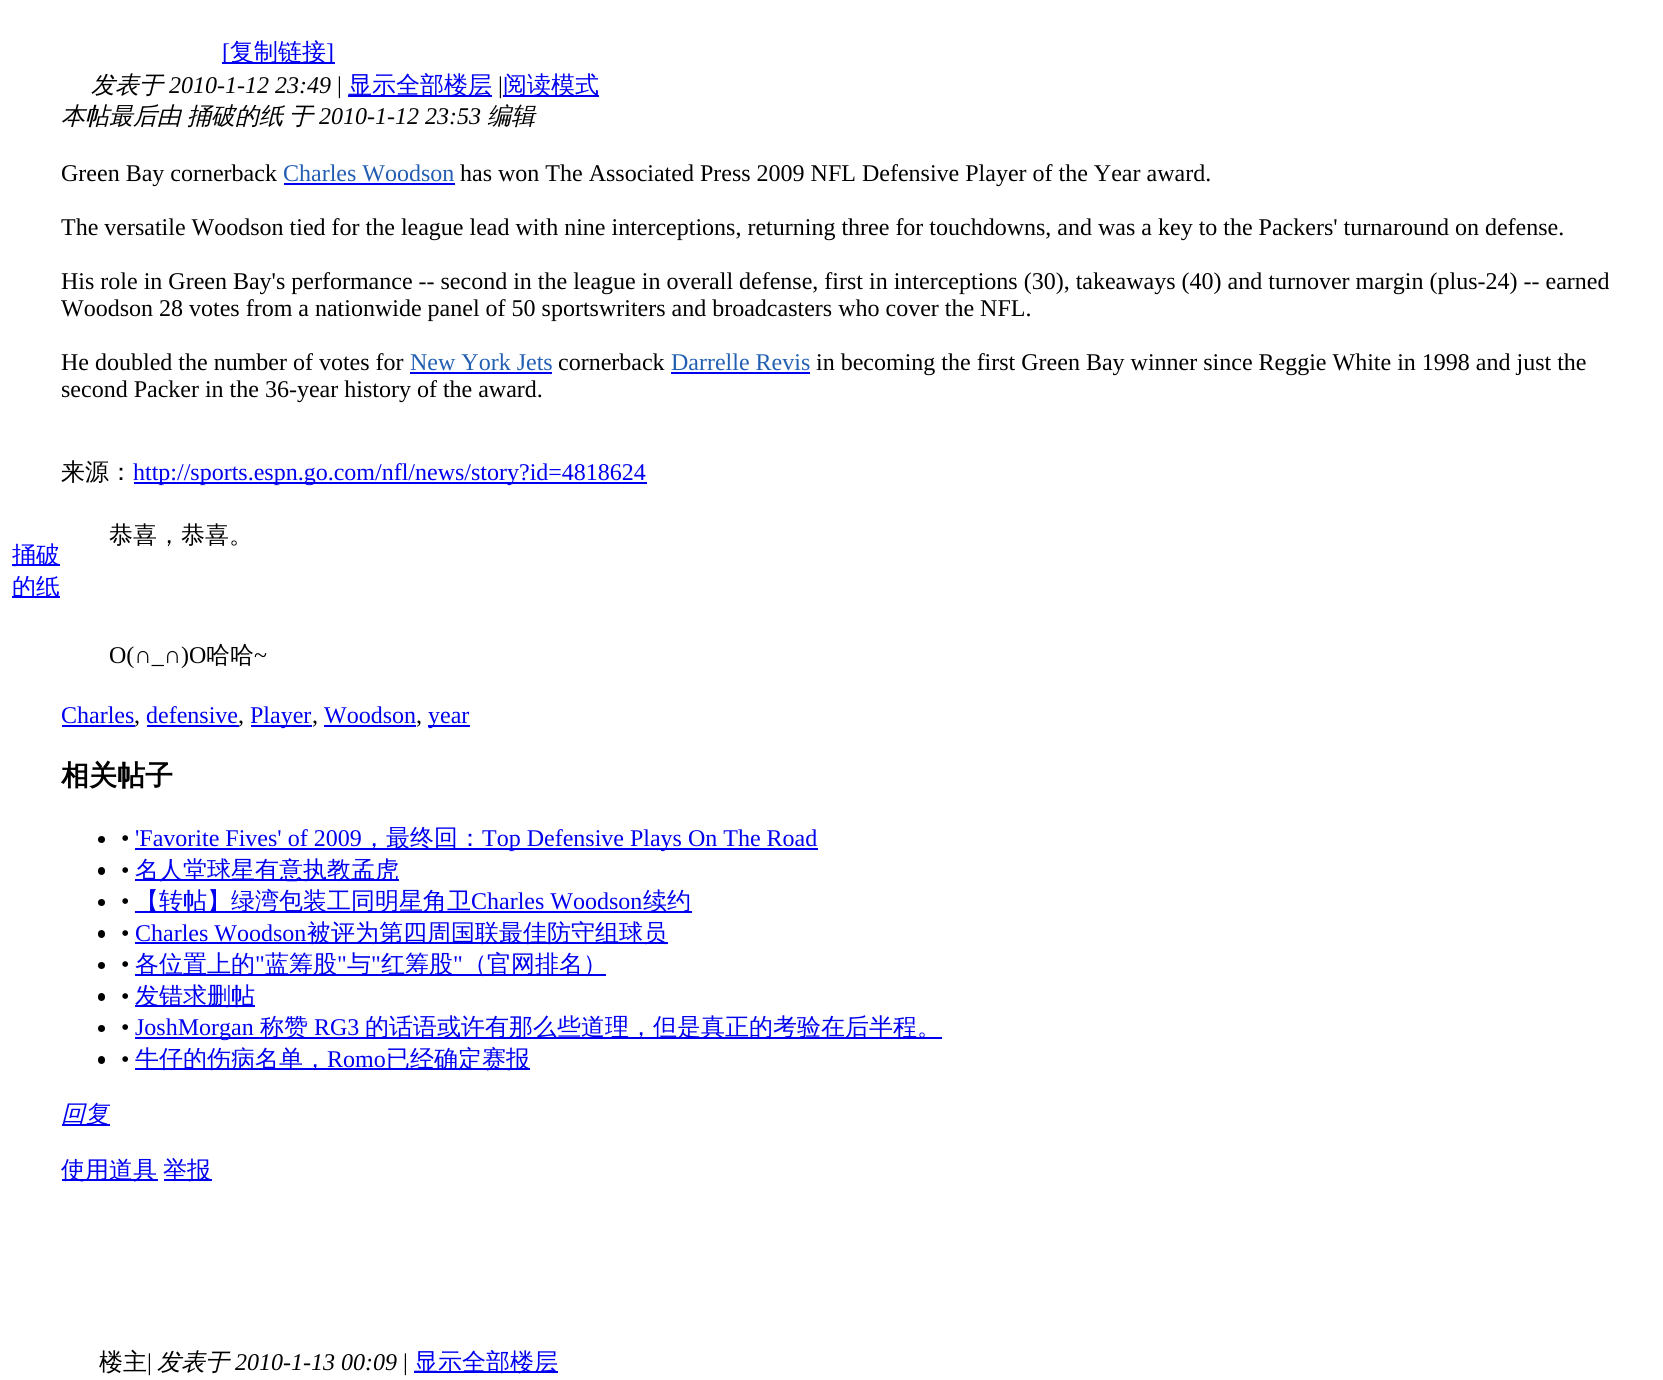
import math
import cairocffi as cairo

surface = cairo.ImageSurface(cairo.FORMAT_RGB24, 1663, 1380)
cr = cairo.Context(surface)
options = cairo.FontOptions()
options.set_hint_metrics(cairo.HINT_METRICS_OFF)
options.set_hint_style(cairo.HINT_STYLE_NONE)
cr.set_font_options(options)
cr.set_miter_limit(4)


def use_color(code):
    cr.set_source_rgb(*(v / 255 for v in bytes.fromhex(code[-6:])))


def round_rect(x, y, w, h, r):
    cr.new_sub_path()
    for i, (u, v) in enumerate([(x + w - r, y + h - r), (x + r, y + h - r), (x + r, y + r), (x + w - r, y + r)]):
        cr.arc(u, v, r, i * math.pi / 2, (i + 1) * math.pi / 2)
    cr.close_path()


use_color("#ffffff")
cr.paint()
use_color("#0000ee")
cr.rectangle(222, 62, 113, 2)
cr.fill()
cr.select_font_face("Liberation Serif")
cr.set_font_size(24)
cr.move_to(222, 60)
cr.show_text("[")
cr.select_font_face("WenQuanYi Zen Hei Medium")
cr.move_to(230, 60)
cr.show_text("复制链接")
cr.select_font_face("Liberation Serif")
cr.move_to(326, 60)
cr.show_text("]")
use_color("#0000ff")
cr.rectangle(12, 564, 48, 2)
cr.fill()
cr.select_font_face("WenQuanYi Zen Hei Medium")
cr.move_to(12, 563)
cr.show_text("捅破")
cr.rectangle(12, 596, 48, 2)
cr.fill()
cr.move_to(12, 595)
cr.show_text("的纸")
cr.select_font_face("WenQuanYi Zen Hei Medium", cairo.FONT_SLANT_ITALIC)
use_color("#000000")
cr.move_to(91, 93)
cr.show_text("发表于")
cr.select_font_face("Liberation Serif", cairo.FONT_SLANT_ITALIC)
cr.move_to(169, 93)
cr.show_text("2010-1-12 23:49")
cr.select_font_face("Liberation Serif")
cr.move_to(337, 93)
cr.show_text("|")
use_color("#0000ee")
cr.rectangle(348, 95, 144, 2)
cr.fill()
cr.select_font_face("WenQuanYi Zen Hei Medium")
cr.move_to(348, 93)
cr.show_text("显示全部楼层")
cr.select_font_face("Liberation Serif")
use_color("#000000")
cr.move_to(498, 93)
cr.show_text("|")
use_color("#0000ee")
cr.rectangle(503, 95, 96, 2)
cr.fill()
cr.select_font_face("WenQuanYi Zen Hei Medium")
cr.move_to(503, 93)
cr.show_text("阅读模式")
cr.select_font_face("WenQuanYi Zen Hei Medium", cairo.FONT_SLANT_ITALIC)
use_color("#000000")
cr.move_to(61, 124)
cr.show_text("本帖最后由")
cr.move_to(187, 124)
cr.show_text("捅破的纸")
cr.move_to(289, 124)
cr.show_text("于")
cr.select_font_face("Liberation Serif", cairo.FONT_SLANT_ITALIC)
cr.move_to(319, 124)
cr.show_text("2010-1-12 23:53")
cr.select_font_face("WenQuanYi Zen Hei Medium", cairo.FONT_SLANT_ITALIC)
cr.move_to(487, 124)
cr.show_text("编辑")
cr.select_font_face("Liberation Serif")
cr.move_to(61, 181)
cr.show_text("Green Bay cornerback")
use_color("#225fb2")
cr.move_to(283, 181)
cr.show_text("Charles Woodson")
use_color("#0000ee")
cr.rectangle(284, 183, 171, 2)
cr.fill()
use_color("#000000")
cr.move_to(460, 181)
cr.show_text("has won The Associated Press 2009 NFL Defensive Player of the Year award.")
cr.move_to(61, 235)
cr.show_text("The versatile Woodson tied for the league lead with nine interceptions, returning three for touchdowns, and was a key to the Packers' turnaround on defense.")
cr.move_to(61, 289)
cr.show_text("His role in Green Bay's performance -- second in the league in overall defense, first in interceptions (30), takeaways (40) and turnover margin (plus-24) -- earned")
cr.move_to(61, 316)
cr.show_text("Woodson 28 votes from a nationwide panel of 50 sportswriters and broadcasters who cover the NFL.")
cr.move_to(61, 370)
cr.show_text("He doubled the number of votes for")
use_color("#225fb2")
cr.move_to(410, 370)
cr.show_text("New York Jets")
use_color("#0000ee")
cr.rectangle(410, 372, 142, 2)
cr.fill()
use_color("#000000")
cr.move_to(558, 370)
cr.show_text("cornerback")
use_color("#225fb2")
cr.move_to(671, 370)
cr.show_text("Darrelle Revis")
use_color("#0000ee")
cr.rectangle(671, 372, 139, 2)
cr.fill()
use_color("#000000")
cr.move_to(816, 370)
cr.show_text("in becoming the first Green Bay winner since Reggie White in 1998 and just the")
cr.move_to(61, 397)
cr.show_text("second Packer in the 36-year history of the award.")
cr.select_font_face("WenQuanYi Zen Hei Medium")
cr.move_to(61, 480)
cr.show_text("来源：")
use_color("#0000ee")
cr.rectangle(134, 482, 513, 2)
cr.fill()
cr.select_font_face("Liberation Serif")
cr.move_to(133, 480)
cr.show_text("http://sports.espn.go.com/nfl/news/story?id=4818624")
cr.select_font_face("WenQuanYi Zen Hei Medium")
use_color("#000000")
cr.move_to(109, 543)
cr.show_text("恭喜，恭喜。")
cr.select_font_face("Liberation Serif")
cr.move_to(109, 663)
cr.show_text("O(∩_∩)O")
cr.select_font_face("WenQuanYi Zen Hei Medium")
cr.move_to(206, 663)
cr.show_text("哈哈")
cr.select_font_face("Liberation Serif")
cr.move_to(254, 663)
cr.show_text("~")
use_color("#0000ee")
cr.move_to(61, 723)
cr.show_text("Charles")
cr.rectangle(62, 725, 73, 2)
cr.fill()
use_color("#000000")
cr.move_to(134, 723)
cr.show_text(",")
use_color("#0000ee")
cr.move_to(146, 723)
cr.show_text("defensive")
cr.rectangle(147, 725, 92, 2)
cr.fill()
use_color("#000000")
cr.move_to(238, 723)
cr.show_text(",")
use_color("#0000ee")
cr.rectangle(251, 725, 61, 2)
cr.fill()
cr.move_to(250, 723)
cr.show_text("Player")
use_color("#000000")
cr.move_to(312, 723)
cr.show_text(",")
use_color("#0000ee")
cr.move_to(324, 723)
cr.show_text("Woodson")
cr.rectangle(324, 725, 92, 2)
cr.fill()
use_color("#000000")
cr.move_to(416, 723)
cr.show_text(",")
use_color("#0000ee")
cr.rectangle(428, 725, 42, 2)
cr.fill()
cr.move_to(428, 723)
cr.show_text("year")
cr.select_font_face("WenQuanYi Zen Hei", cairo.FONT_SLANT_NORMAL, cairo.FONT_WEIGHT_BOLD)
cr.set_font_size(28)
use_color("#000000")
cr.move_to(61, 785)
cr.show_text("相关帖子")
cr.new_path()
cr.arc(101.5, 839.5, 3.5, 0, 2 * math.pi)
cr.fill()
cr.select_font_face("Liberation Serif")
cr.set_font_size(24)
cr.move_to(121, 846)
cr.show_text("•")
use_color("#0000ee")
cr.move_to(135, 846)
cr.show_text("'Favorite Fives' of 2009")
cr.rectangle(135, 848, 683, 2)
cr.fill()
cr.select_font_face("WenQuanYi Zen Hei Medium")
cr.move_to(362, 846)
cr.show_text("，最终回：")
cr.select_font_face("Liberation Serif")
cr.move_to(482, 846)
cr.show_text("Top Defensive Plays On The Road")
use_color("#000000")
round_rect(98, 867, 7, 8, 3.5)
cr.fill()
cr.move_to(121, 878)
cr.show_text("•")
use_color("#0000ee")
cr.rectangle(135, 879, 264, 2)
cr.fill()
cr.select_font_face("WenQuanYi Zen Hei Medium")
cr.move_to(135, 878)
cr.show_text("名人堂球星有意执教孟虎")
use_color("#000000")
cr.new_path()
cr.arc(101.5, 902.5, 3.5, 0, 2 * math.pi)
cr.fill()
cr.select_font_face("Liberation Serif")
cr.move_to(121, 909)
cr.show_text("•")
use_color("#0000ee")
cr.rectangle(135, 911, 557, 2)
cr.fill()
cr.select_font_face("WenQuanYi Zen Hei Medium")
cr.move_to(135, 909)
cr.show_text("【转帖】绿湾包装工同明星角卫")
cr.select_font_face("Liberation Serif")
cr.move_to(471, 909)
cr.show_text("Charles Woodson")
cr.select_font_face("WenQuanYi Zen Hei Medium")
cr.move_to(643, 909)
cr.show_text("续约")
use_color("#000000")
round_rect(98, 930, 7, 8, 3.5)
cr.fill()
cr.select_font_face("Liberation Serif")
cr.move_to(121, 941)
cr.show_text("•")
use_color("#0000ee")
cr.move_to(135, 941)
cr.show_text("Charles Woodson")
cr.rectangle(135, 942, 533, 2)
cr.fill()
cr.select_font_face("WenQuanYi Zen Hei Medium")
cr.move_to(307, 941)
cr.show_text("被评为第四周国联最佳防守组球员")
cr.rectangle(135, 974, 471, 2)
cr.fill()
cr.move_to(135, 972)
cr.show_text("各位置上的")
cr.select_font_face("Liberation Serif")
cr.move_to(255, 972)
cr.show_text("\"")
cr.select_font_face("WenQuanYi Zen Hei Medium")
cr.move_to(265, 972)
cr.show_text("蓝筹股")
cr.select_font_face("Liberation Serif")
cr.move_to(337, 972)
cr.show_text("\"")
cr.select_font_face("WenQuanYi Zen Hei Medium")
cr.move_to(347, 972)
cr.show_text("与")
cr.select_font_face("Liberation Serif")
cr.move_to(371, 972)
cr.show_text("\"")
cr.select_font_face("WenQuanYi Zen Hei Medium")
cr.move_to(381, 972)
cr.show_text("红筹股")
cr.select_font_face("Liberation Serif")
cr.move_to(453, 972)
cr.show_text("\"")
cr.select_font_face("WenQuanYi Zen Hei Medium")
cr.move_to(463, 972)
cr.show_text("（官网排名）")
use_color("#000000")
cr.new_path()
cr.arc(101.5, 965.5, 3.5, 0, 2 * math.pi)
cr.fill()
cr.select_font_face("Liberation Serif")
cr.move_to(121, 972)
cr.show_text("•")
round_rect(98, 993, 7, 8, 3.5)
cr.fill()
cr.move_to(121, 1004)
cr.show_text("•")
use_color("#0000ee")
cr.rectangle(135, 1005, 120, 2)
cr.fill()
cr.select_font_face("WenQuanYi Zen Hei Medium")
cr.move_to(135, 1004)
cr.show_text("发错求删帖")
use_color("#000000")
cr.new_path()
cr.arc(101.5, 1028.5, 3.5, 0, 2 * math.pi)
cr.fill()
cr.select_font_face("Liberation Serif")
cr.move_to(121, 1035)
cr.show_text("•")
use_color("#0000ee")
cr.rectangle(135, 1037, 807, 2)
cr.fill()
cr.move_to(135, 1035)
cr.show_text("JoshMorgan")
cr.select_font_face("WenQuanYi Zen Hei Medium")
cr.move_to(260, 1035)
cr.show_text("称赞")
cr.select_font_face("Liberation Serif")
cr.move_to(314, 1035)
cr.show_text("RG3")
cr.select_font_face("WenQuanYi Zen Hei Medium")
cr.move_to(365, 1035)
cr.show_text("的话语或许有那么些道理，但是真正的考验在后半程。")
use_color("#000000")
round_rect(98, 1056, 7, 8, 3.5)
cr.fill()
cr.select_font_face("Liberation Serif")
cr.move_to(121, 1067)
cr.show_text("•")
use_color("#0000ee")
cr.rectangle(135, 1068, 395, 2)
cr.fill()
cr.select_font_face("WenQuanYi Zen Hei Medium")
cr.move_to(135, 1067)
cr.show_text("牛仔的伤病名单，")
cr.select_font_face("Liberation Serif")
cr.move_to(327, 1067)
cr.show_text("Romo")
cr.select_font_face("WenQuanYi Zen Hei Medium")
cr.move_to(386, 1067)
cr.show_text("已经确定赛报")
cr.rectangle(62, 1124, 48, 2)
cr.fill()
cr.select_font_face("WenQuanYi Zen Hei Medium", cairo.FONT_SLANT_ITALIC)
cr.move_to(61, 1122)
cr.show_text("回复")
cr.rectangle(62, 1179, 96, 2)
cr.fill()
cr.select_font_face("WenQuanYi Zen Hei Medium")
cr.move_to(61, 1178)
cr.show_text("使用道具")
cr.rectangle(164, 1179, 48, 2)
cr.fill()
cr.move_to(163, 1178)
cr.show_text("举报")
use_color("#000000")
cr.move_to(99, 1370)
cr.show_text("楼主")
cr.select_font_face("Liberation Serif")
cr.move_to(147, 1370)
cr.show_text("|")
cr.select_font_face("WenQuanYi Zen Hei Medium", cairo.FONT_SLANT_ITALIC)
cr.move_to(157, 1370)
cr.show_text("发表于")
cr.select_font_face("Liberation Serif", cairo.FONT_SLANT_ITALIC)
cr.move_to(235, 1370)
cr.show_text("2010-1-13 00:09")
cr.select_font_face("Liberation Serif")
cr.move_to(403, 1370)
cr.show_text("|")
use_color("#0000ee")
cr.rectangle(414, 1371, 144, 2)
cr.fill()
cr.select_font_face("WenQuanYi Zen Hei Medium")
cr.move_to(414, 1370)
cr.show_text("显示全部楼层")
surface.write_to_png("result.png")
